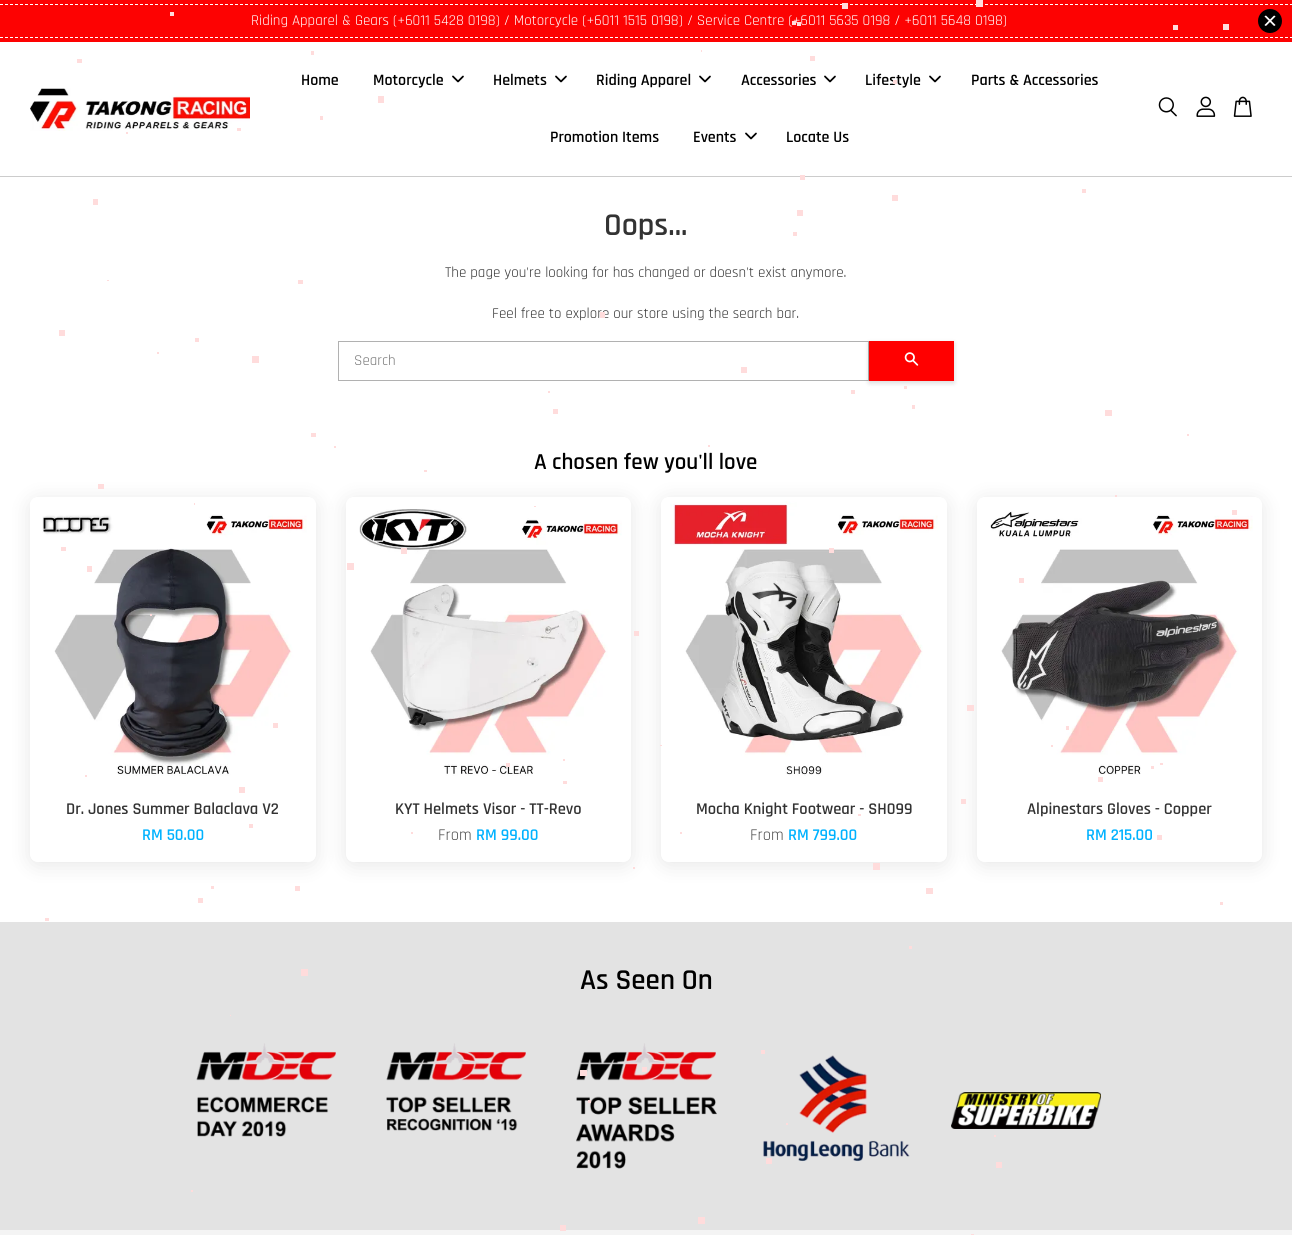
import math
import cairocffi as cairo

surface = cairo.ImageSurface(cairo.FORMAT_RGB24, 1292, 1235)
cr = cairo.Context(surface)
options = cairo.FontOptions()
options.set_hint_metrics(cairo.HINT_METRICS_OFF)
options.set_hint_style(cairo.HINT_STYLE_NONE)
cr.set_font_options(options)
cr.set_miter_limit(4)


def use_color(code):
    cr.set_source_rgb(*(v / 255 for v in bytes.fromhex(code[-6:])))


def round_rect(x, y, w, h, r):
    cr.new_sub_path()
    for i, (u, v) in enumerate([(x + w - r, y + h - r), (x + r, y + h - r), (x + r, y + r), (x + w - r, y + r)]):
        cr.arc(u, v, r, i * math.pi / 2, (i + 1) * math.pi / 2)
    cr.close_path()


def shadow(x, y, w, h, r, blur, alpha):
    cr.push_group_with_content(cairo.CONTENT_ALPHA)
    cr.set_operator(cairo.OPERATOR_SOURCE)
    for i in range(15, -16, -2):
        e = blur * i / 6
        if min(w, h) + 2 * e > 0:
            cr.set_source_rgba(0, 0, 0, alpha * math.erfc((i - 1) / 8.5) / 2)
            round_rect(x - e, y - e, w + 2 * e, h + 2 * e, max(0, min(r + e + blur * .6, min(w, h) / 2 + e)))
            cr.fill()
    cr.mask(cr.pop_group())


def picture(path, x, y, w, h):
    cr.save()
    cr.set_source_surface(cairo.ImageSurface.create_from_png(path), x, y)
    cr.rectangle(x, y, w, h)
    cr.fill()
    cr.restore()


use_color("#ffffff")
cr.paint()
use_color("#fd0202")
cr.rectangle(0, 0, 1292, 42)
cr.fill()
cr.new_path()
cr.move_to(0, 4.5)
cr.line_to(1292, 4.5)
use_color("#ffffff")
cr.set_line_width(1)
cr.set_dash([3, 2])
cr.stroke()
use_color("#ffdcdc")
cr.rectangle(842, 3, 6, 6)
cr.fill()
cr.rectangle(976, 0, 7, 7)
cr.fill()
cr.rectangle(170, 12, 4, 4)
cr.fill()
cr.new_path()
cr.move_to(0, 37.5)
cr.line_to(1292, 37.5)
use_color("#ffffff")
cr.stroke()
cr.select_font_face("Rajdhani")
cr.set_font_size(15)
cr.move_to(251, 25)
cr.show_text("Riding Apparel & Gears (+6011 5428 0198) / Motorcycle (+6011 1515 0198) / Service Centre (+6011 5635 0198 / +6011 5648 0198)")
use_color("#000000")
cr.new_path()
cr.arc(1270, 21, 12, 0, 2 * math.pi)
cr.fill()
use_color("#ffffff")
cr.new_path()
cr.move_to(1275, 16)
cr.curve_to(1275.5, 16, 1275.5, 17, 1275, 17)
cr.line_to(1266.5, 25.5)
cr.curve_to(1266, 26, 1265.5, 26, 1265, 25.5)
cr.curve_to(1264.5, 25.5, 1264.5, 24.5, 1265, 24.5)
cr.line_to(1273.5, 16)
cr.curve_to(1274, 15.5, 1274.5, 15.5, 1275, 16)
cr.close_path()
cr.fill()
cr.new_path()
cr.move_to(1265, 16)
cr.curve_to(1265.5, 15.5, 1266, 15.5, 1266.5, 16)
cr.line_to(1275, 24.5)
cr.curve_to(1275.5, 24.5, 1275.5, 25.5, 1275, 25.5)
cr.curve_to(1274.5, 26, 1274, 26, 1273.5, 25.5)
cr.line_to(1265, 17)
cr.curve_to(1264.5, 17, 1264.5, 16, 1265, 16)
cr.close_path()
cr.fill()
use_color("#cccccc")
cr.rectangle(0, 176, 1292, 1)
cr.fill()
picture("img1.png", 30, 88, 220, 43)
cr.select_font_face("Rajdhani SemiBold")
cr.set_font_size(16)
use_color("#000000")
cr.move_to(301, 85)
cr.show_text("Home")
cr.move_to(373, 85)
cr.show_text("Motorcycle")
picture("img2.png", 452, 75, 12, 8)
cr.move_to(493, 85)
cr.show_text("Helmets")
picture("img2.png", 555, 75, 12, 8)
cr.move_to(596, 85)
cr.show_text("Riding Apparel")
picture("img2.png", 699, 75, 12, 8)
cr.move_to(741, 85)
cr.show_text("Accessories")
picture("img2.png", 824, 75, 12, 8)
cr.move_to(865, 85)
cr.show_text("Lifestyle")
picture("img2.png", 929, 75, 12, 8)
cr.move_to(971, 85)
cr.show_text("Parts & Accessories")
cr.move_to(550, 142)
cr.show_text("Promotion Items")
cr.move_to(693, 142)
cr.show_text("Events")
picture("img2.png", 745, 132, 12, 8)
cr.move_to(786, 142)
cr.show_text("Locate Us")
picture("img3.png", 1158, 97, 19, 20)
picture("img4.png", 1196, 96, 20, 21)
picture("img5.png", 1233, 96, 19, 21)
cr.set_font_size(32)
use_color("#333333")
cr.move_to(604, 235)
cr.show_text("Oops...")
cr.select_font_face("Rajdhani")
cr.set_font_size(15)
cr.move_to(445, 277)
cr.show_text("The page you're looking for has changed or doesn't exist anymore.")
cr.move_to(492, 318)
cr.show_text("Feel free to explore our store using the search bar.")
cr.rectangle(338.5, 341.5, 530, 39)
use_color("#b1b1b1")
cr.set_dash([])
cr.stroke()
use_color("#757575")
cr.move_to(354, 365)
cr.show_text("Search")
use_color("#000000")
shadow(869, 343, 85, 40, 0, 2.5, 0.15)
use_color("#ff0000")
cr.rectangle(869, 341, 85, 40)
cr.fill()
picture("img6.png", 904, 352, 15, 14)
cr.select_font_face("Rajdhani SemiBold")
cr.set_font_size(23)
use_color("#000000")
cr.move_to(534, 469)
cr.show_text("A chosen few you'll love")
cr.save()
cr.set_fill_rule(cairo.FILL_RULE_EVEN_ODD)
cr.new_path()
cr.move_to(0, 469)
cr.line_to(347, 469)
cr.line_to(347, 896)
cr.line_to(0, 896)
cr.close_path()
cr.move_to(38, 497)
cr.line_to(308, 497)
cr.curve_to(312.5, 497, 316, 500.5, 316, 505)
cr.line_to(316, 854)
cr.curve_to(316, 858.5, 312.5, 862, 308, 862)
cr.line_to(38, 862)
cr.curve_to(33.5, 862, 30, 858.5, 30, 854)
cr.line_to(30, 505)
cr.curve_to(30, 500.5, 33.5, 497, 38, 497)
cr.close_path()
cr.clip()
use_color("#000000")
shadow(30, 500, 286, 365, 8, 10, 0.1)
cr.restore()
picture("img7.png", 42, 514, 265, 262)
cr.set_font_size(16.5)
use_color("#333333")
cr.move_to(66, 814)
cr.show_text("Dr. Jones Summer Balaclava V2")
use_color("#00b2ff")
cr.move_to(142, 840)
cr.show_text("RM 50.00")
cr.save()
cr.set_fill_rule(cairo.FILL_RULE_EVEN_ODD)
cr.new_path()
cr.move_to(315, 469)
cr.line_to(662, 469)
cr.line_to(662, 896)
cr.line_to(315, 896)
cr.close_path()
cr.move_to(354, 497)
cr.line_to(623, 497)
cr.curve_to(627.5, 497, 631, 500.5, 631, 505)
cr.line_to(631, 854)
cr.curve_to(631, 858.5, 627.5, 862, 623, 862)
cr.line_to(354, 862)
cr.curve_to(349.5, 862, 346, 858.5, 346, 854)
cr.line_to(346, 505)
cr.curve_to(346, 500.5, 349.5, 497, 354, 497)
cr.close_path()
cr.clip()
use_color("#000000")
shadow(346, 500, 285, 365, 8, 10, 0.1)
cr.restore()
picture("img8.png", 359, 509, 263, 267)
use_color("#333333")
cr.move_to(395, 814)
cr.show_text("KYT Helmets Visor - TT-Revo")
cr.select_font_face("Rajdhani")
use_color("#4d4d4d")
cr.move_to(438, 840)
cr.show_text("From")
cr.select_font_face("Rajdhani SemiBold")
use_color("#00b2ff")
cr.move_to(476, 840)
cr.show_text("RM 99.00")
cr.save()
cr.set_fill_rule(cairo.FILL_RULE_EVEN_ODD)
cr.new_path()
cr.move_to(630, 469)
cr.line_to(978, 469)
cr.line_to(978, 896)
cr.line_to(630, 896)
cr.close_path()
cr.move_to(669, 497)
cr.line_to(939, 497)
cr.curve_to(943.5, 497, 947, 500.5, 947, 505)
cr.line_to(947, 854)
cr.curve_to(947, 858.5, 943.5, 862, 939, 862)
cr.line_to(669, 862)
cr.curve_to(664.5, 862, 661, 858.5, 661, 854)
cr.line_to(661, 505)
cr.curve_to(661, 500.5, 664.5, 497, 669, 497)
cr.close_path()
cr.clip()
use_color("#000000")
shadow(661, 500, 286, 365, 8, 10, 0.1)
cr.restore()
picture("img9.png", 670, 501, 268, 275)
use_color("#333333")
cr.move_to(696, 814)
cr.show_text("Mocha Knight Footwear - SH099")
cr.select_font_face("Rajdhani")
use_color("#4d4d4d")
cr.move_to(750, 840)
cr.show_text("From")
cr.select_font_face("Rajdhani SemiBold")
use_color("#00b2ff")
cr.move_to(788, 840)
cr.show_text("RM 799.00")
cr.save()
cr.set_fill_rule(cairo.FILL_RULE_EVEN_ODD)
cr.new_path()
cr.move_to(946, 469)
cr.line_to(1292, 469)
cr.line_to(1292, 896)
cr.line_to(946, 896)
cr.close_path()
cr.move_to(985, 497)
cr.line_to(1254, 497)
cr.curve_to(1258.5, 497, 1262, 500.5, 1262, 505)
cr.line_to(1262, 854)
cr.curve_to(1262, 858.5, 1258.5, 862, 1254, 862)
cr.line_to(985, 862)
cr.curve_to(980.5, 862, 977, 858.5, 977, 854)
cr.line_to(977, 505)
cr.curve_to(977, 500.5, 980.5, 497, 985, 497)
cr.close_path()
cr.clip()
use_color("#000000")
shadow(977, 500, 285, 365, 8, 10, 0.1)
cr.restore()
picture("img10.png", 990, 511, 263, 264)
use_color("#333333")
cr.move_to(1027, 814)
cr.show_text("Alpinestars Gloves - Copper")
use_color("#00b2ff")
cr.move_to(1086, 840)
cr.show_text("RM 215.00")
use_color("#f4f4f4")
cr.rectangle(0, 1230, 1292, 5)
cr.fill()
use_color("#e3e3e3")
cr.rectangle(0, 922, 1292, 308)
cr.fill()
cr.set_font_size(29)
use_color("#000000")
cr.move_to(580, 989)
cr.show_text("As Seen On")
picture("img11.png", 196, 1043, 140, 94)
picture("img12.png", 386, 1043, 140, 88)
picture("img13.png", 576, 1043, 141, 126)
picture("img14.png", 763, 1055, 147, 107)
picture("img15.png", 951, 1092, 150, 37)
use_color("#ffdcdc")
cr.rectangle(792, 21, 4, 4)
cr.fill()
cr.rectangle(797, 22, 4, 4)
cr.fill()
cr.rectangle(1173, 25, 5, 5)
cr.fill()
cr.rectangle(1223, 24, 6, 6)
cr.fill()
cr.rectangle(311, 51, 3, 4)
cr.fill()
cr.rectangle(701, 50, 1, 2)
cr.fill()
cr.rectangle(77, 59, 5, 4)
cr.fill()
cr.rectangle(810, 56, 5, 5)
cr.fill()
cr.rectangle(1057, 72, 1, 1)
cr.fill()
cr.rectangle(893, 80, 4, 4)
cr.fill()
cr.rectangle(378, 96, 6, 7)
cr.fill()
cr.rectangle(320, 116, 3, 4)
cr.fill()
cr.rectangle(237, 128, 4, 3)
cr.fill()
cr.rectangle(126, 132, 2, 2)
cr.fill()
cr.rectangle(800, 175, 5, 5)
cr.fill()
cr.rectangle(1082, 189, 4, 4)
cr.fill()
cr.rectangle(892, 195, 6, 6)
cr.fill()
cr.rectangle(93, 199, 5, 6)
cr.fill()
cr.rectangle(797, 210, 6, 6)
cr.fill()
cr.rectangle(793, 232, 4, 4)
cr.fill()
cr.rectangle(107, 280, 2, 1)
cr.fill()
cr.rectangle(298, 280, 5, 4)
cr.fill()
cr.rectangle(600, 312, 5, 6)
cr.fill()
cr.rectangle(59, 330, 6, 6)
cr.fill()
cr.rectangle(195, 338, 4, 4)
cr.fill()
cr.rectangle(157, 352, 2, 2)
cr.fill()
cr.rectangle(252, 356, 7, 7)
cr.fill()
cr.rectangle(741, 367, 6, 6)
cr.fill()
cr.rectangle(904, 386, 3, 3)
cr.fill()
cr.rectangle(548, 391, 2, 2)
cr.fill()
cr.rectangle(851, 390, 4, 4)
cr.fill()
cr.rectangle(912, 405, 3, 4)
cr.fill()
cr.rectangle(553, 409, 5, 5)
cr.fill()
cr.rectangle(1105, 410, 7, 6)
cr.fill()
cr.rectangle(311, 433, 5, 4)
cr.fill()
cr.rectangle(1187, 434, 2, 2)
cr.fill()
cr.rectangle(334, 446, 2, 2)
cr.fill()
cr.rectangle(708, 445, 2, 2)
cr.fill()
cr.rectangle(424, 470, 3, 2)
cr.fill()
cr.rectangle(98, 484, 6, 5)
cr.fill()
cr.rectangle(1115, 495, 2, 2)
cr.fill()
cr.rectangle(194, 503, 1, 2)
cr.fill()
cr.rectangle(534, 506, 2, 1)
cr.fill()
cr.rectangle(1232, 510, 5, 5)
cr.fill()
cr.rectangle(61, 547, 5, 4)
cr.fill()
cr.rectangle(401, 548, 6, 6)
cr.fill()
cr.rectangle(829, 548, 5, 5)
cr.fill()
cr.rectangle(87, 566, 5, 6)
cr.fill()
cr.rectangle(347, 563, 7, 7)
cr.fill()
cr.rectangle(1019, 578, 5, 5)
cr.fill()
cr.rectangle(150, 614, 2, 2)
cr.fill()
cr.rectangle(634, 631, 5, 5)
cr.fill()
cr.rectangle(967, 705, 7, 6)
cr.fill()
cr.rectangle(273, 723, 5, 5)
cr.fill()
cr.rectangle(1066, 726, 3, 4)
cr.fill()
cr.rectangle(660, 745, 2, 1)
cr.fill()
cr.rectangle(1051, 745, 2, 2)
cr.fill()
cr.rectangle(563, 759, 2, 2)
cr.fill()
cr.rectangle(506, 763, 4, 4)
cr.fill()
cr.rectangle(1160, 763, 3, 2)
cr.fill()
cr.rectangle(1151, 766, 3, 3)
cr.fill()
cr.rectangle(85, 775, 2, 2)
cr.fill()
cr.rectangle(1098, 777, 5, 5)
cr.fill()
cr.rectangle(563, 781, 4, 3)
cr.fill()
cr.rectangle(239, 787, 6, 6)
cr.fill()
cr.rectangle(961, 799, 5, 5)
cr.fill()
cr.rectangle(858, 814, 3, 2)
cr.fill()
cr.rectangle(249, 824, 4, 4)
cr.fill()
cr.rectangle(411, 832, 2, 2)
cr.fill()
cr.rectangle(680, 832, 2, 2)
cr.fill()
cr.rectangle(1157, 835, 5, 5)
cr.fill()
cr.rectangle(633, 867, 2, 2)
cr.fill()
cr.rectangle(873, 863, 7, 7)
cr.fill()
cr.rectangle(211, 886, 3, 3)
cr.fill()
cr.rectangle(295, 886, 5, 5)
cr.fill()
cr.rectangle(926, 888, 7, 6)
cr.fill()
cr.rectangle(198, 898, 5, 5)
cr.fill()
cr.rectangle(1220, 902, 3, 3)
cr.fill()
cr.rectangle(45, 918, 4, 3)
cr.fill()
cr.rectangle(909, 946, 3, 3)
cr.fill()
cr.rectangle(301, 969, 7, 7)
cr.fill()
cr.rectangle(230, 1015, 1, 1)
cr.fill()
cr.rectangle(761, 1050, 4, 4)
cr.fill()
cr.rectangle(642, 1067, 5, 5)
cr.fill()
cr.rectangle(580, 1070, 7, 6)
cr.fill()
cr.rectangle(588, 1100, 3, 3)
cr.fill()
cr.rectangle(786, 1123, 2, 2)
cr.fill()
cr.rectangle(994, 1135, 2, 2)
cr.fill()
cr.rectangle(766, 1158, 6, 6)
cr.fill()
cr.rectangle(996, 1162, 6, 6)
cr.fill()
cr.rectangle(191, 1190, 2, 2)
cr.fill()
cr.rectangle(698, 1217, 7, 7)
cr.fill()
cr.rectangle(560, 1225, 6, 6)
cr.fill()
cr.rectangle(971, 1234, 3, 1)
cr.fill()
surface.write_to_png("result.png")
